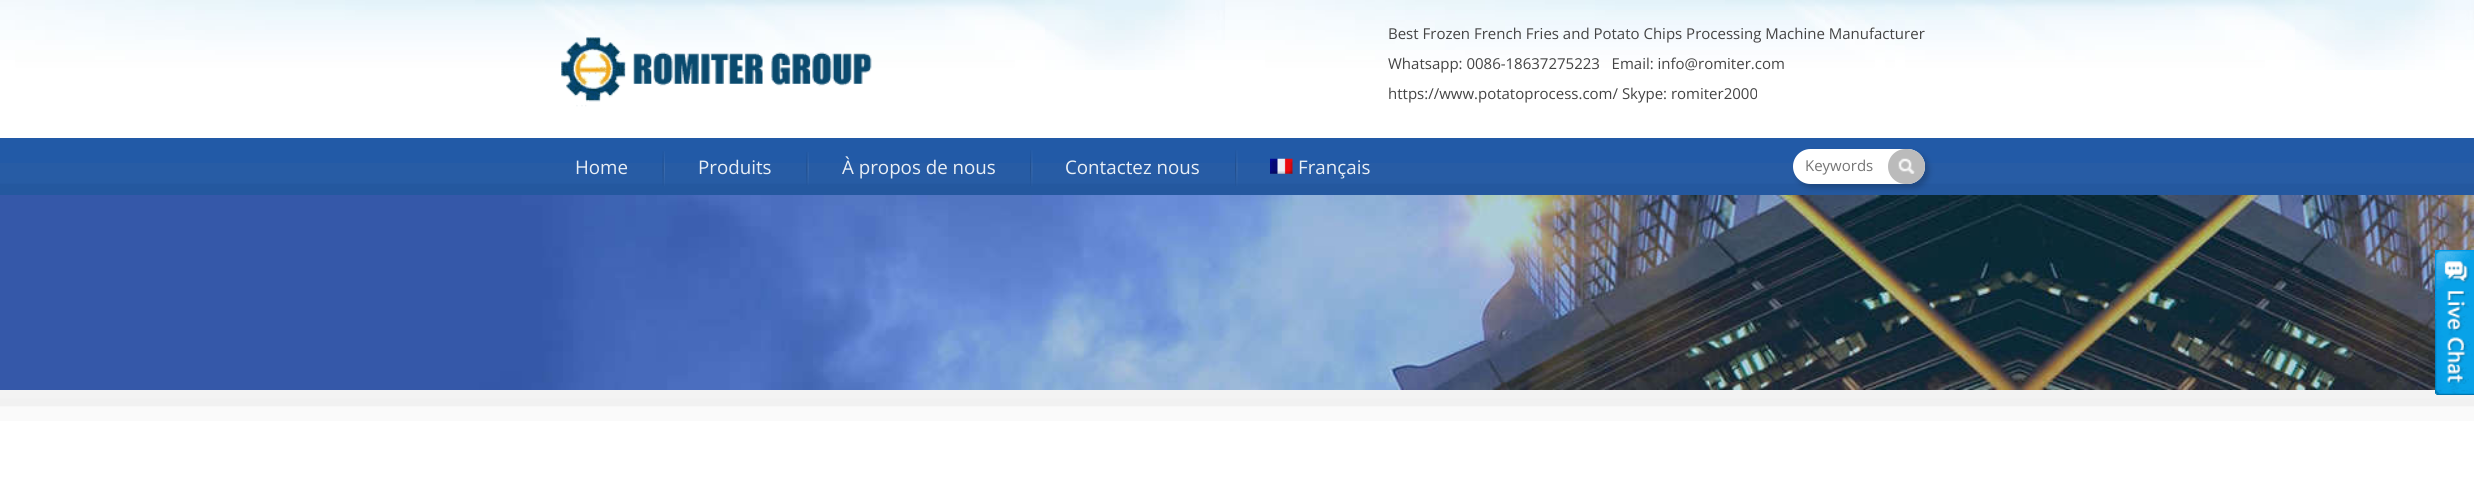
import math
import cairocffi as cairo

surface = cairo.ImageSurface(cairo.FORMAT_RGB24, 2474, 504)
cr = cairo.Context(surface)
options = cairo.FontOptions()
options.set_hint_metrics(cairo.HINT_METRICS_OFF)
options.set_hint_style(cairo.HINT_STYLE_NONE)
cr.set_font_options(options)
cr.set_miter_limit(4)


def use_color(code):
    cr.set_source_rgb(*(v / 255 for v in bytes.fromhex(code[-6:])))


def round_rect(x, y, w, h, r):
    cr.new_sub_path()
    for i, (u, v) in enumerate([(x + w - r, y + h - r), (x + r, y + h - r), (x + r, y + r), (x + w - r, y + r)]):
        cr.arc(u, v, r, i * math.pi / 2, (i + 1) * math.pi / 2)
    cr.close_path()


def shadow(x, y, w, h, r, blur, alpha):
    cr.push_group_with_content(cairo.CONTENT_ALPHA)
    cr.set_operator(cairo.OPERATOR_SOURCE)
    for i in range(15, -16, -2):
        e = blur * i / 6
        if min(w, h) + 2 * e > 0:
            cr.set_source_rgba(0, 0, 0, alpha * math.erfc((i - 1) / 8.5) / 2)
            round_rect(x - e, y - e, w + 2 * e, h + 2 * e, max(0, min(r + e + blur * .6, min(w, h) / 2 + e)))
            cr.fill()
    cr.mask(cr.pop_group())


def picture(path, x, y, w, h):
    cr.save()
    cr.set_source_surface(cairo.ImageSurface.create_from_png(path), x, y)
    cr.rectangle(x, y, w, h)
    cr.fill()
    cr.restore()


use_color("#ffffff")
cr.paint()
picture("img1.png", 0, 0, 2474, 70)
picture("img2.png", 561, 37, 311, 70)
cr.select_font_face("Open Sans")
cr.set_font_size(15)
use_color("#444444")
cr.move_to(1388, 39)
cr.show_text("Best Frozen French Fries and Potato Chips Processing Machine Manufacturer")
cr.move_to(1388, 69)
cr.show_text("Whatsapp: 0086-18637275223   Email: info@romiter.com")
cr.move_to(1388, 99)
cr.show_text("https://www.potatoprocess.com/ Skype: romiter2000")
use_color("#225aa7")
cr.rectangle(0, 138, 2474, 57)
cr.fill()
picture("img3.png", 0, 163, 2474, 32)
cr.set_font_size(18.75)
use_color("#e9eff6")
cr.move_to(575, 174)
cr.show_text("Home")
picture("img4.png", 662, 151, 3, 35)
cr.move_to(698, 174)
cr.show_text("Produits")
picture("img5.png", 806, 152, 3, 33)
cr.move_to(842, 174)
cr.show_text("À propos de nous")
picture("img6.png", 1030, 150, 3, 36)
cr.move_to(1065, 174)
cr.show_text("Contactez nous")
picture("img6.png", 1235, 150, 3, 36)
picture("img7.png", 1270, 158, 23, 16)
cr.move_to(1298, 174)
cr.show_text("Français")
picture("img9.png", 0, 195, 2474, 195)
use_color("#000000")
shadow(1796, 153, 133, 35, 17.5, 3, 0.2)
use_color("#ffffff")
round_rect(1793, 149, 132, 35, 17.5)
cr.fill()
cr.set_font_size(15)
use_color("#757575")
cr.move_to(1805, 171)
cr.show_text("Keywords")
use_color("#bbbbbb")
round_rect(1888, 149, 37, 35, 17.5)
cr.fill()
picture("img8.png", 1898, 158, 17, 16)
picture("img10.png", 2435, 250, 2, 2)
picture("img12.png", 0, 390, 2474, 31)
picture("img11.png", 2435, 250, 39, 145)
surface.write_to_png("result.png")
